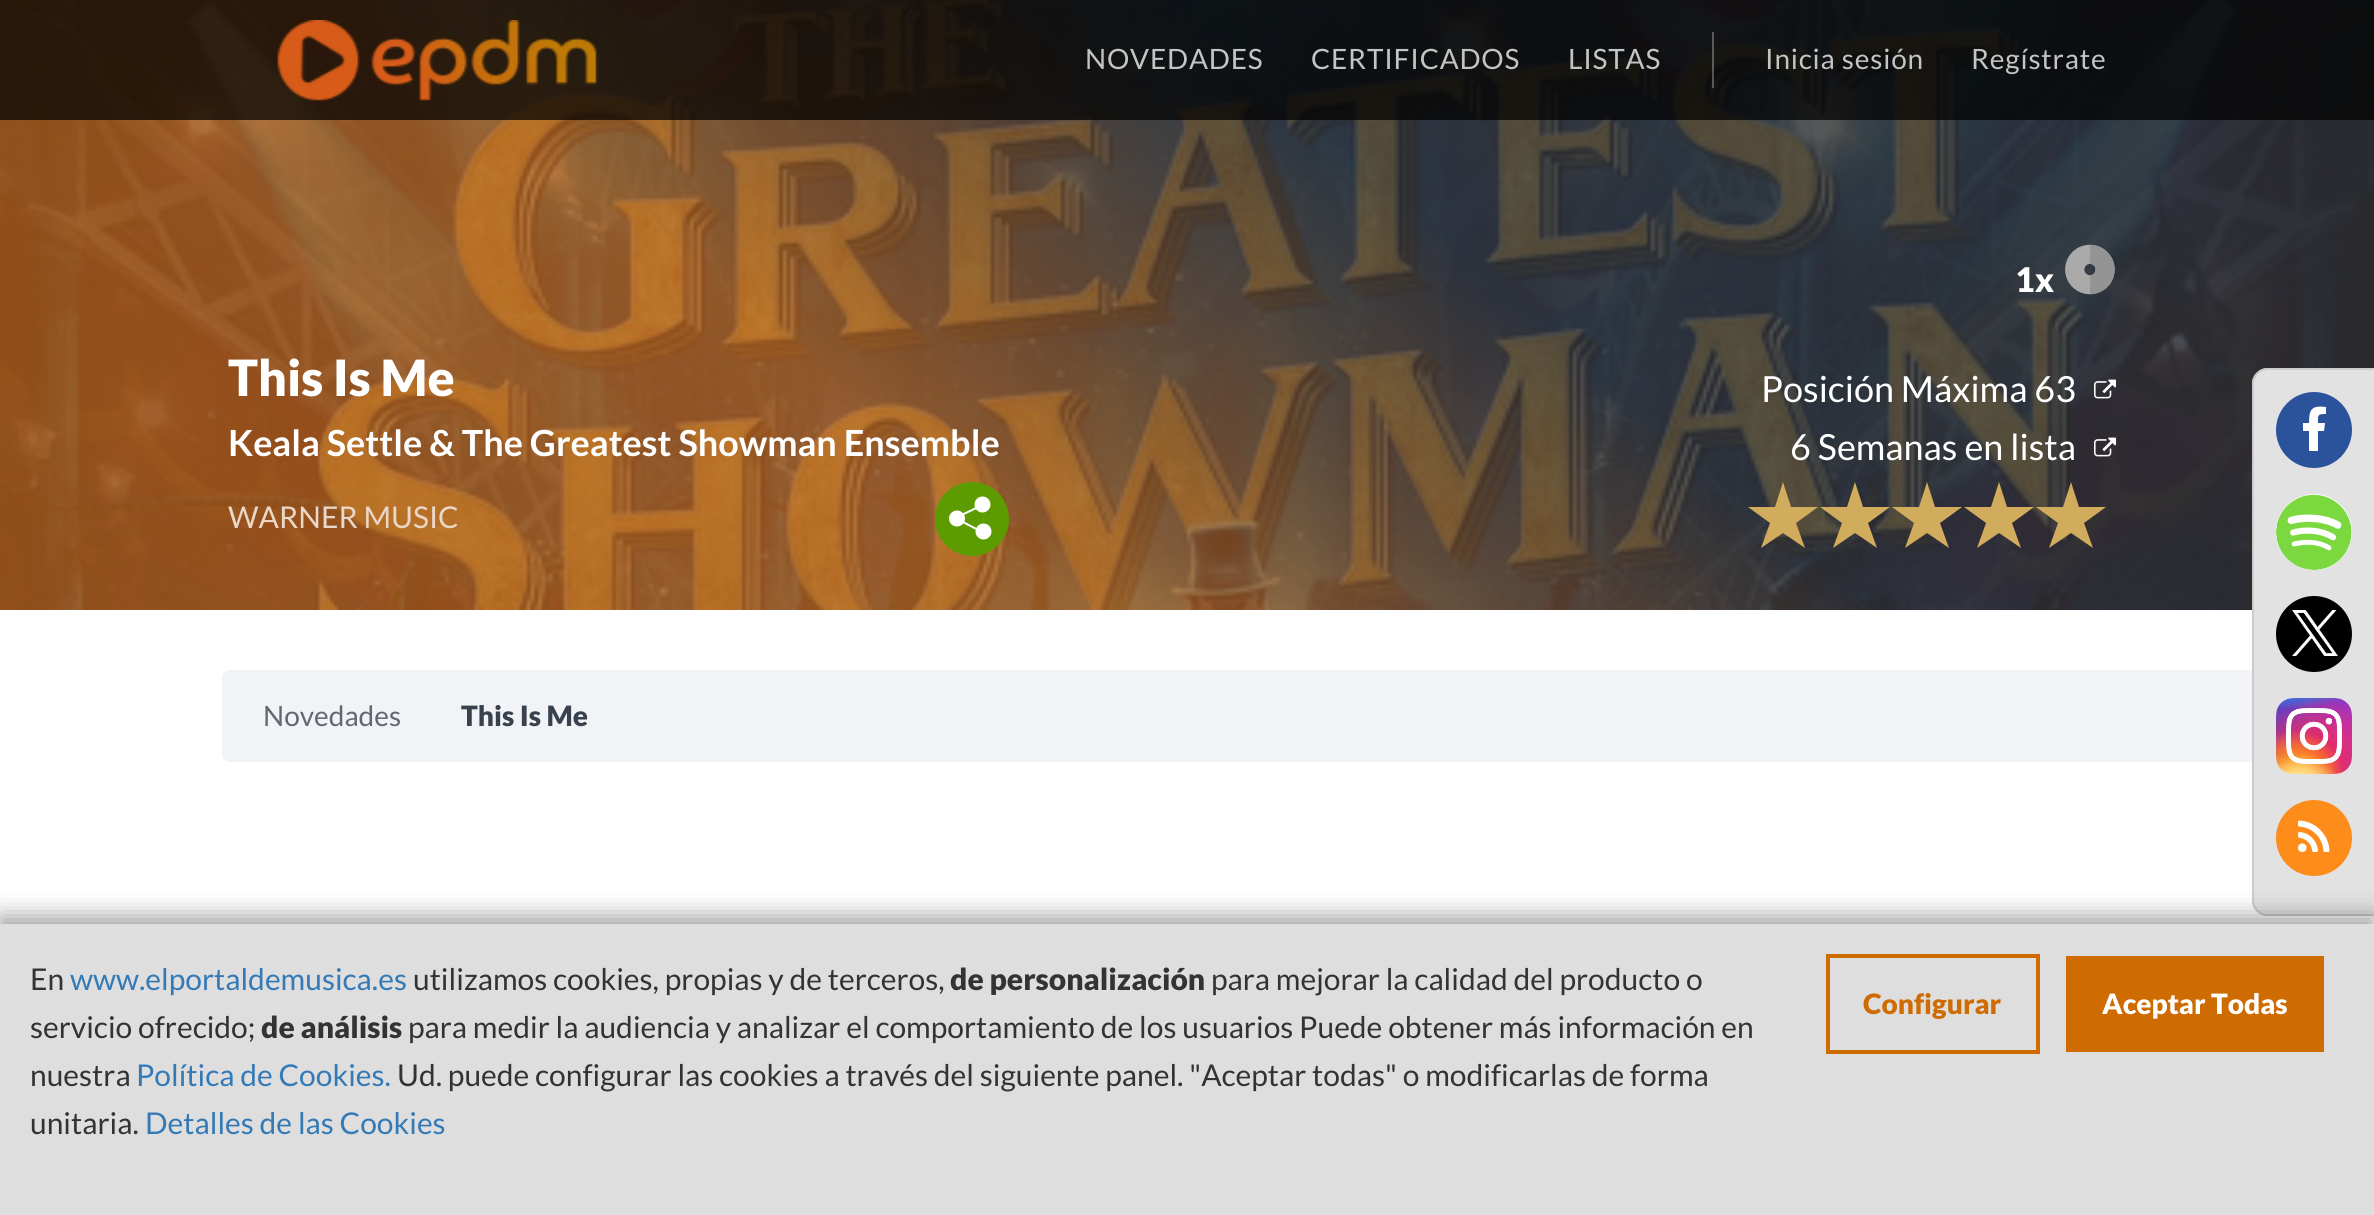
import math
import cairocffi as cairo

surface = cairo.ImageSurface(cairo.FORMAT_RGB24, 2374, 1215)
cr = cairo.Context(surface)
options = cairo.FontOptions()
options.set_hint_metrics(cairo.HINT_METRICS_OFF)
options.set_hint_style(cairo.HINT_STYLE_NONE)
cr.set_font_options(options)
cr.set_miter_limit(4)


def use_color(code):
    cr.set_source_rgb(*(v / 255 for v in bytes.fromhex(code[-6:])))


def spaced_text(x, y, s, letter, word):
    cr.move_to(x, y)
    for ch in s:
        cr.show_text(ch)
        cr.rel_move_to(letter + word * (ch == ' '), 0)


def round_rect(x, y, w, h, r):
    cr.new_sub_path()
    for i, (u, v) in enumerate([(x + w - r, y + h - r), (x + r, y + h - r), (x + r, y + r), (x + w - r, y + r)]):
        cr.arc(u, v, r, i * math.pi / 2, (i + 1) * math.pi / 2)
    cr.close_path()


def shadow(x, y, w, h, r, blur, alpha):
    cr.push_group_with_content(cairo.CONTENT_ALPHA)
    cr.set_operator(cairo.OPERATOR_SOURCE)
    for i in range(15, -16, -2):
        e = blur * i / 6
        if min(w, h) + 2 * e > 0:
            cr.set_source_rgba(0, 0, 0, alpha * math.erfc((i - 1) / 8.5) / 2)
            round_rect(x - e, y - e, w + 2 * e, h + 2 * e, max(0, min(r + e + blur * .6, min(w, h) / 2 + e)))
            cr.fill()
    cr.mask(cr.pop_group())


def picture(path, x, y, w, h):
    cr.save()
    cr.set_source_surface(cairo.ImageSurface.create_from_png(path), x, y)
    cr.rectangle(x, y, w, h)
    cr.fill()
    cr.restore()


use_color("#ffffff")
cr.paint()
gradient = cairo.LinearGradient(525, 1066, 1849, -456)
gradient.add_color_stop_rgba(0.35, 0.702, 0.384, 0.102, 1)
gradient.add_color_stop_rgba(0.61, 0.2, 0.2, 0.2, 1)
cr.set_source(gradient)
cr.rectangle(0, 0, 2374, 610)
cr.fill()
picture("img2.png", 0, 0, 2374, 610)
cr.set_source_rgba(0, 0, 0, 0.72)
cr.rectangle(0, 0, 2374, 120)
cr.fill()
picture("img1.png", 277, 20, 321, 81)
cr.select_font_face("Lato")
cr.set_font_size(28)
use_color("#c3c4c4")
spaced_text(1085, 69, "NOVEDADES", 0.8, 0)
spaced_text(1311, 69, "CERTIFICADOS", 0.8, 0)
spaced_text(1568, 69, "LISTAS", 0.8, 0)
cr.set_source_rgba(1, 1, 1, 0.3)
cr.rectangle(1712, 32, 2, 56)
cr.fill()
use_color("#c3c4c4")
spaced_text(1765, 69, "Inicia sesión", 0.8, 0)
spaced_text(1971, 69, "Regístrate", 0.8, 0)
cr.select_font_face("Lato Black")
cr.set_font_size(50)
use_color("#ffffff")
cr.move_to(228, 396)
cr.show_text("This Is Me")
cr.select_font_face("Lato", cairo.FONT_SLANT_NORMAL, cairo.FONT_WEIGHT_BOLD)
cr.set_font_size(36)
cr.move_to(228, 456)
cr.show_text("Keala Settle & The Greatest Showman Ensemble")
cr.select_font_face("Lato")
cr.set_font_size(30)
use_color("#e9d7c7")
cr.move_to(228, 528)
cr.show_text("WARNER MUSIC")
use_color("#5d9c00")
cr.new_path()
cr.arc(972, 519, 37, 0, 2 * math.pi)
cr.fill()
use_color("#ffffff")
cr.arc(982.5, 504.5, 8, 0, 2 * math.pi)
cr.fill()
cr.arc(957, 518.5, 8, 0, 2 * math.pi)
cr.fill()
cr.arc(983.5, 531.5, 8, 0, 2 * math.pi)
cr.fill()
cr.new_path()
cr.move_to(981.5, 505.5)
cr.line_to(960.5, 515.5)
cr.move_to(959, 520)
cr.line_to(983, 532.5)
cr.stroke()
cr.select_font_face("Lato Black")
cr.set_font_size(34)
cr.move_to(2015, 292)
cr.show_text("1x")
picture("img3.png", 2065, 244, 50, 51)
picture("img4.png", 2094, 379, 22, 20)
cr.select_font_face("Lato")
cr.set_font_size(36)
cr.move_to(1761, 402)
cr.show_text("Posición Máxima 63")
picture("img5.png", 2094, 437, 22, 20)
cr.move_to(1790, 460)
cr.show_text("6 Semanas en lista")
use_color("#d1ac5c")
cr.new_path()
cr.move_to(1783, 482)
cr.line_to(1791, 507)
cr.line_to(1818, 507)
cr.line_to(1796, 523)
cr.line_to(1805, 548)
cr.line_to(1783, 533)
cr.line_to(1761, 548)
cr.line_to(1770, 523)
cr.line_to(1748, 507)
cr.line_to(1775, 507)
cr.close_path()
cr.fill()
cr.new_path()
cr.move_to(1855, 482)
cr.line_to(1863, 507)
cr.line_to(1890, 507)
cr.line_to(1868, 523)
cr.line_to(1877, 548)
cr.line_to(1855, 533)
cr.line_to(1833, 548)
cr.line_to(1842, 523)
cr.line_to(1820, 507)
cr.line_to(1847, 507)
cr.close_path()
cr.fill()
cr.new_path()
cr.move_to(1927, 482)
cr.line_to(1935, 507)
cr.line_to(1962, 507)
cr.line_to(1940, 523)
cr.line_to(1949, 548)
cr.line_to(1927, 533)
cr.line_to(1905, 548)
cr.line_to(1914, 523)
cr.line_to(1892, 507)
cr.line_to(1919, 507)
cr.close_path()
cr.fill()
cr.new_path()
cr.move_to(1999, 482)
cr.line_to(2007, 507)
cr.line_to(2034, 507)
cr.line_to(2012, 523)
cr.line_to(2021, 548)
cr.line_to(1999, 533)
cr.line_to(1977, 548)
cr.line_to(1986, 523)
cr.line_to(1964, 507)
cr.line_to(1991, 507)
cr.close_path()
cr.fill()
cr.new_path()
cr.move_to(2071, 482)
cr.line_to(2079, 507)
cr.line_to(2106, 507)
cr.line_to(2084, 523)
cr.line_to(2093, 548)
cr.line_to(2071, 533)
cr.line_to(2049, 548)
cr.line_to(2058, 523)
cr.line_to(2036, 507)
cr.line_to(2063, 507)
cr.close_path()
cr.fill()
use_color("#f1f3f6")
round_rect(222, 670, 2122, 92, 8)
cr.fill()
cr.set_font_size(28)
use_color("#626872")
cr.move_to(263, 726)
cr.show_text("Novedades")
cr.select_font_face("Lato Black")
use_color("#39414d")
cr.move_to(461, 726)
cr.show_text("This Is Me")
use_color("#e2e2e2")
cr.new_path()
cr.move_to(2268, 368)
cr.line_to(2374, 368)
cr.line_to(2374, 916)
cr.line_to(2268, 916)
cr.curve_to(2259, 916, 2252, 909, 2252, 900)
cr.line_to(2252, 384)
cr.curve_to(2252, 375, 2259, 368, 2268, 368)
cr.close_path()
cr.fill()
use_color("#cccccc")
cr.set_fill_rule(cairo.FILL_RULE_EVEN_ODD)
cr.new_path()
cr.move_to(2268, 368)
cr.line_to(2374, 368)
cr.line_to(2374, 916)
cr.line_to(2268, 916)
cr.curve_to(2259, 916, 2252, 909, 2252, 900)
cr.line_to(2252, 384)
cr.curve_to(2252, 375, 2259, 368, 2268, 368)
cr.close_path()
cr.move_to(2268, 370)
cr.line_to(2374, 370)
cr.line_to(2374, 914)
cr.line_to(2268, 914)
cr.curve_to(2260, 914, 2254, 908, 2254, 900)
cr.line_to(2254, 384)
cr.curve_to(2254, 376, 2260, 370, 2268, 370)
cr.close_path()
cr.fill()
use_color("#2b539b")
cr.arc(2314, 430, 38, 0, 2 * math.pi)
cr.fill()
use_color("#ffffff")
cr.set_fill_rule(cairo.FILL_RULE_WINDING)
cr.new_path()
cr.move_to(2326, 407)
cr.line_to(2326, 414)
cr.curve_to(2317, 414, 2318, 415, 2318, 423)
cr.line_to(2325, 423)
cr.line_to(2324, 431)
cr.line_to(2318, 431)
cr.line_to(2318, 451)
cr.line_to(2309, 451)
cr.line_to(2309, 431)
cr.line_to(2303, 431)
cr.line_to(2303, 423)
cr.line_to(2309, 423)
cr.curve_to(2309, 410, 2311, 405, 2326, 407)
cr.close_path()
cr.fill()
cr.arc(2314, 532, 38, 0, 2 * math.pi)
cr.fill()
picture("img6.png", 2276, 494, 76, 76)
use_color("#000000")
cr.arc(2314, 634, 38, 0, 2 * math.pi)
cr.fill()
picture("img7.png", 2292, 610, 46, 46)
picture("img8.png", 2276, 698, 76, 76)
use_color("#fd8c1b")
cr.arc(2314, 838, 38, 0, 2 * math.pi)
cr.fill()
picture("img9.png", 2298, 820, 32, 32)
use_color("#000000")
shadow(0, 916, 2374, 292, 0, 12, 0.37)
use_color("#dedede")
cr.rectangle(0, 924, 2374, 291)
cr.fill()
cr.select_font_face("Lato")
cr.set_font_size(30)
use_color("#333333")
cr.move_to(30, 990)
cr.show_text("En")
use_color("#337ab7")
cr.move_to(70, 990)
cr.show_text("www.elportaldemusica.es")
use_color("#333333")
cr.move_to(413, 990)
cr.show_text("utilizamos cookies, propias y de terceros,")
cr.select_font_face("Lato Black")
cr.move_to(950, 990)
cr.show_text("de personalización")
cr.select_font_face("Lato")
cr.move_to(1211, 990)
cr.show_text("para mejorar la calidad del producto o")
cr.move_to(30, 1038)
cr.show_text("servicio ofrecido;")
cr.select_font_face("Lato Black")
cr.move_to(261, 1038)
cr.show_text("de análisis")
cr.select_font_face("Lato")
cr.move_to(408, 1038)
cr.show_text("para medir la audiencia y analizar el comportamiento de los usuarios Puede obtener más información en")
cr.move_to(30, 1086)
cr.show_text("nuestra")
use_color("#337ab7")
cr.move_to(136, 1086)
cr.show_text("Política de Cookies.")
use_color("#333333")
cr.move_to(397, 1086)
cr.show_text("Ud. puede configurar las cookies a través del siguiente panel. \"Aceptar todas\" o modificarlas de forma")
cr.move_to(30, 1134)
cr.show_text("unitaria.")
use_color("#337ab7")
cr.move_to(145, 1134)
cr.show_text("Detalles de las Cookies")
cr.rectangle(1828, 956, 210, 96)
use_color("#ce6b01")
cr.set_line_width(4)
cr.stroke()
cr.select_font_face("Lato Black")
cr.set_font_size(28)
cr.move_to(1863, 1014)
cr.show_text("Configurar")
cr.rectangle(2066, 956, 258, 96)
cr.fill()
use_color("#ffffff")
cr.move_to(2102, 1014)
cr.show_text("Aceptar Todas")
surface.write_to_png("result.png")
